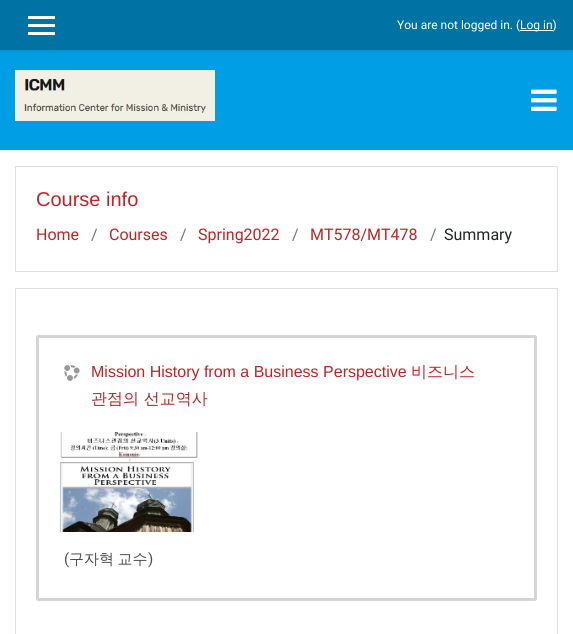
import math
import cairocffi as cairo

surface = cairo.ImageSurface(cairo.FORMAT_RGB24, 573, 634)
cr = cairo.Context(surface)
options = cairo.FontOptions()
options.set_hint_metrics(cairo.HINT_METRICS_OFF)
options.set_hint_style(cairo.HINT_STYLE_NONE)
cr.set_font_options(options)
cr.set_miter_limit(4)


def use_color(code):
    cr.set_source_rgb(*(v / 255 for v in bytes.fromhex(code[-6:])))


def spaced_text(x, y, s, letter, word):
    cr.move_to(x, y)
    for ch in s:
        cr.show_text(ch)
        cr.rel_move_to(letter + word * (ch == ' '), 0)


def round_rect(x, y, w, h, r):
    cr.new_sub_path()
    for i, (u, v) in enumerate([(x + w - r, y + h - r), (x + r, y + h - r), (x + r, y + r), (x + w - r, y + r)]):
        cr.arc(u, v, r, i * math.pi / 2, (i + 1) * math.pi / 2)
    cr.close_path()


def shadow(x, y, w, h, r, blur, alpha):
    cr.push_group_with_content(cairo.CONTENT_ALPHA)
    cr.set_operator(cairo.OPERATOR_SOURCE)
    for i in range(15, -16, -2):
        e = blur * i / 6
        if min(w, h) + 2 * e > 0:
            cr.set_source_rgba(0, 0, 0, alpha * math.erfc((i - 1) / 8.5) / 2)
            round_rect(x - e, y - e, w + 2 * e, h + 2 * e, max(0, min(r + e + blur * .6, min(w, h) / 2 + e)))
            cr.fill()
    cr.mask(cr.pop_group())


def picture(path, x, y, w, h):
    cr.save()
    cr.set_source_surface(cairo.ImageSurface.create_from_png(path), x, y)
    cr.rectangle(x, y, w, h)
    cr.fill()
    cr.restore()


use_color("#ffffff")
cr.paint()
use_color("#009fe5")
cr.rectangle(0, 50, 573, 100)
cr.fill()
use_color("#000000")
shadow(0, 2, 573, 50, 0, 2, 0.08)
use_color("#0073a5")
cr.rectangle(0, 0, 573, 50)
cr.fill()
use_color("#ffffff")
cr.rectangle(28, 16, 27, 3)
cr.fill()
cr.rectangle(28, 24, 27, 3)
cr.fill()
cr.rectangle(28, 32, 27, 3)
cr.fill()
cr.select_font_face("Roboto")
cr.set_font_size(12)
cr.move_to(397, 29)
cr.show_text("You are not logged in. (")
cr.rectangle(520, 30, 33, 1)
cr.fill()
cr.move_to(520, 29)
cr.show_text("Log in)")
picture("img1.png", 15, 70, 200, 51)
picture("img2.png", 531, 89, 26, 22)
cr.rectangle(15.5, 166.5, 542, 105)
use_color("#dfdfdf")
cr.set_line_width(1)
cr.stroke()
cr.select_font_face("Liberation Sans")
cr.set_font_size(20)
use_color("#c02424")
cr.move_to(36, 206)
cr.show_text("Course info")
cr.select_font_face("Roboto")
cr.set_font_size(16)
cr.move_to(36, 240)
cr.show_text("Home")
use_color("#6c757d")
cr.move_to(91, 240)
cr.show_text("/")
use_color("#c02424")
cr.move_to(109, 240)
cr.show_text("Courses")
use_color("#6c757d")
cr.move_to(180, 240)
cr.show_text("/")
use_color("#c02424")
cr.move_to(198, 240)
cr.show_text("Spring2022")
use_color("#6c757d")
cr.move_to(292, 240)
cr.show_text("/")
use_color("#c02424")
cr.move_to(310, 240)
cr.show_text("MT578/MT478")
use_color("#6c757d")
cr.move_to(430, 240)
cr.show_text("/")
use_color("#212529")
cr.move_to(444, 240)
cr.show_text("Summary")
cr.rectangle(15.5, 288.5, 542, 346)
use_color("#dfdfdf")
cr.stroke()
round_rect(37.5, 336.5, 498, 263, 0.5)
use_color("#d5d5d5")
cr.set_line_width(3)
cr.stroke()
picture("img3.png", 64, 365, 16, 16)
cr.select_font_face("Liberation Sans")
use_color("#c02424")
cr.move_to(91, 377)
cr.show_text("Mission History from a Business Perspective")
cr.select_font_face("WenQuanYi Zen Hei Medium")
cr.move_to(411, 377)
cr.show_text("비즈니스")
cr.move_to(91, 404)
cr.show_text("관점의 선교역사")
picture("img4.png", 59, 432, 139, 100)
cr.select_font_face("Roboto")
cr.set_font_size(15)
use_color("#4e4e4e")
cr.move_to(64, 564)
cr.show_text("(")
cr.select_font_face("WenQuanYi Zen Hei Medium")
spaced_text(69, 564, "구자혁 교수", 0, -1)
cr.select_font_face("Roboto")
cr.move_to(148, 564)
cr.show_text(")")
surface.write_to_png("result.png")
